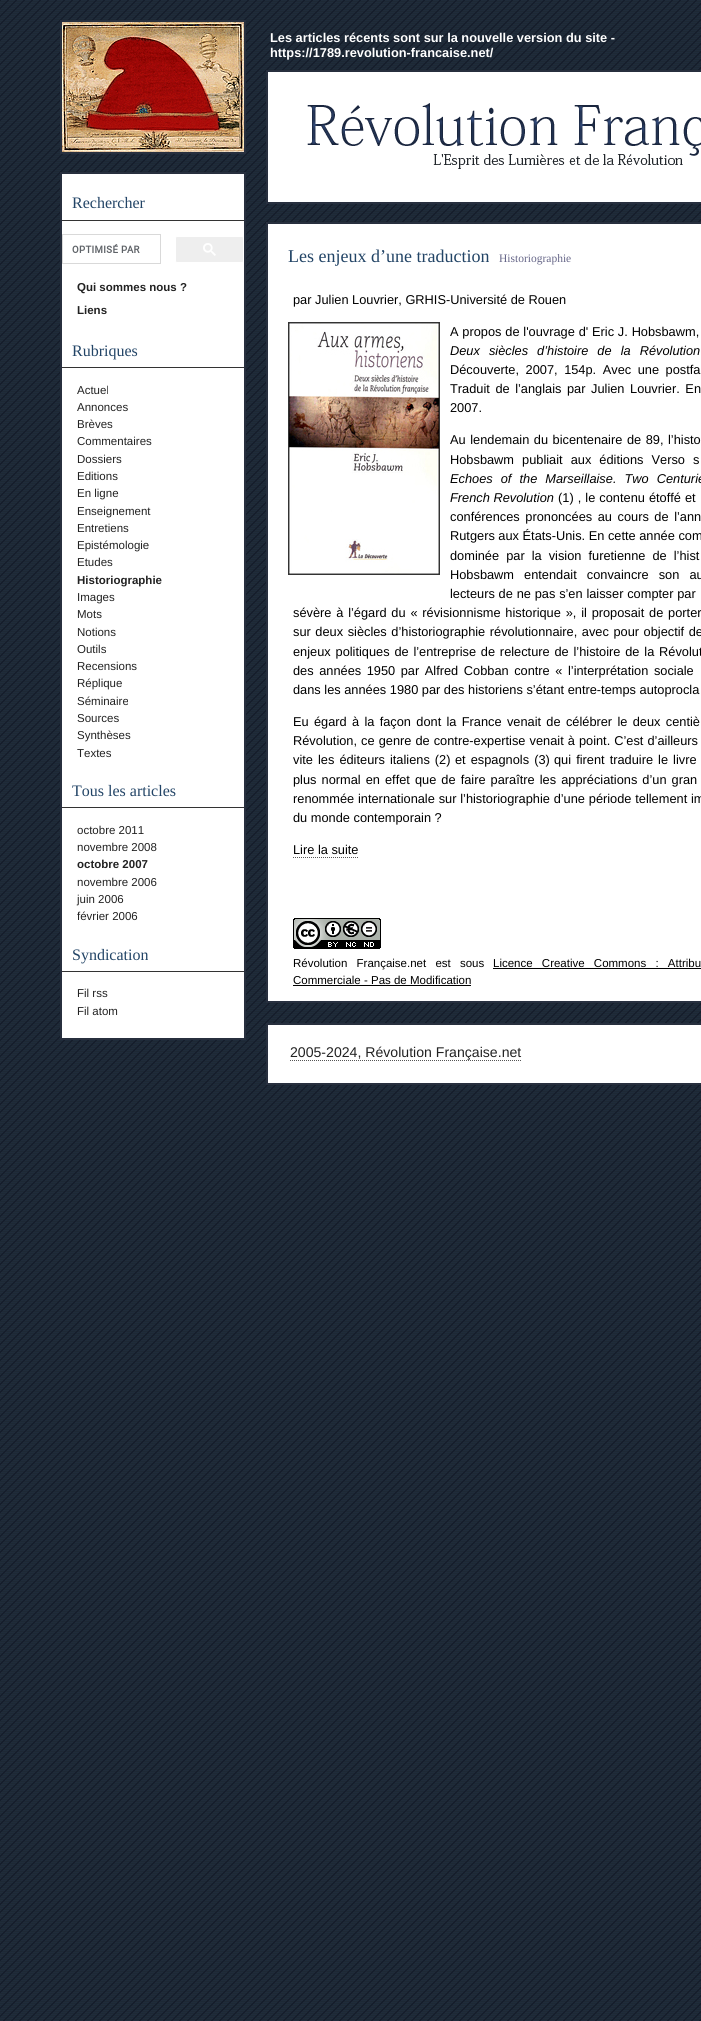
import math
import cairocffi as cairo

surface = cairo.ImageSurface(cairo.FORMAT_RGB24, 701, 2021)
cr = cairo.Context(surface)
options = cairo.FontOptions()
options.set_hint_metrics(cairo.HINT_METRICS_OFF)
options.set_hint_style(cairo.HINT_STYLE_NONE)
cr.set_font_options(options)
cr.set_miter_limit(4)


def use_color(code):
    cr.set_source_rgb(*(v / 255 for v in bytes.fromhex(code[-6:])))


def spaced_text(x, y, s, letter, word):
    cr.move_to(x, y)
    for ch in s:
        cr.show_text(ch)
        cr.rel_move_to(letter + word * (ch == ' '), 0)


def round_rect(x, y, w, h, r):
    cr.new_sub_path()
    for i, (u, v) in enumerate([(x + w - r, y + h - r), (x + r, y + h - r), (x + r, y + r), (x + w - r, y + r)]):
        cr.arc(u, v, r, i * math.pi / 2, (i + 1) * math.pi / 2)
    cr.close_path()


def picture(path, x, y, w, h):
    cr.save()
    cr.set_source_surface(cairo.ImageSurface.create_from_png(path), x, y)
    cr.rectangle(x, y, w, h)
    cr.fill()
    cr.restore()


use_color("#ffffff")
cr.paint()
picture("img1.png", 0, 0, 701, 2021)
cr.select_font_face("Liberation Sans", cairo.FONT_SLANT_NORMAL, cairo.FONT_WEIGHT_BOLD)
cr.set_font_size(12.8)
use_color("#ffffff")
cr.move_to(270, 42)
cr.show_text("Les articles récents sont sur la nouvelle version du site -")
cr.move_to(270, 57)
cr.show_text("https://1789.revolution-francaise.net/")
cr.rectangle(61, 21, 184, 132)
use_color("#272f3e")
cr.stroke()
picture("img2.png", 62, 22, 182, 130)
use_color("#ffffff")
cr.rectangle(61, 173, 184, 866)
cr.fill_preserve()
use_color("#272f3e")
cr.stroke()
use_color("#333333")
cr.rectangle(62, 220, 182, 1)
cr.fill()
cr.select_font_face("Liberation Serif")
cr.set_font_size(16)
use_color("#224466")
cr.move_to(72, 208)
cr.show_text("Rechercher")
cr.rectangle(62.5, 234.5, 98, 29)
use_color("#d9d9d9")
cr.set_line_width(1)
cr.stroke()
picture("img3.png", 72, 244, 68, 9)
use_color("#eeeeee")
round_rect(175.5, 236.5, 68, 26, 1.5)
cr.fill_preserve()
use_color("#ffffff")
cr.stroke()
picture("img4.png", 203, 243, 13, 13)
cr.select_font_face("Liberation Sans", cairo.FONT_SLANT_NORMAL, cairo.FONT_WEIGHT_BOLD)
cr.set_font_size(11.5)
use_color("#222222")
cr.move_to(77, 291)
cr.show_text("Qui sommes nous ?")
cr.move_to(77, 314)
cr.show_text("Liens")
use_color("#333333")
cr.rectangle(62, 367, 182, 1)
cr.fill()
cr.select_font_face("Liberation Serif")
cr.set_font_size(16)
use_color("#224466")
cr.move_to(72, 356)
cr.show_text("Rubriques")
cr.select_font_face("Liberation Sans")
cr.set_font_size(11.5)
use_color("#222222")
cr.move_to(77, 394)
cr.show_text("Actuel")
cr.move_to(77, 411)
cr.show_text("Annonces")
cr.move_to(77, 428)
cr.show_text("Brèves")
cr.move_to(77, 445)
cr.show_text("Commentaires")
cr.move_to(77, 463)
cr.show_text("Dossiers")
cr.move_to(77, 480)
cr.show_text("Editions")
cr.move_to(77, 497)
cr.show_text("En ligne")
cr.move_to(77, 515)
cr.show_text("Enseignement")
cr.move_to(77, 532)
cr.show_text("Entretiens")
cr.move_to(77, 549)
cr.show_text("Epistémologie")
cr.move_to(77, 566)
cr.show_text("Etudes")
cr.select_font_face("Liberation Sans", cairo.FONT_SLANT_NORMAL, cairo.FONT_WEIGHT_BOLD)
cr.move_to(77, 584)
cr.show_text("Historiographie")
cr.select_font_face("Liberation Sans")
cr.move_to(77, 601)
cr.show_text("Images")
cr.move_to(77, 618)
cr.show_text("Mots")
cr.move_to(77, 636)
cr.show_text("Notions")
cr.move_to(77, 653)
cr.show_text("Outils")
cr.move_to(77, 670)
cr.show_text("Recensions")
cr.move_to(77, 687)
cr.show_text("Réplique")
cr.move_to(77, 705)
cr.show_text("Séminaire")
cr.move_to(77, 722)
cr.show_text("Sources")
cr.move_to(77, 739)
cr.show_text("Synthèses")
cr.move_to(77, 757)
cr.show_text("Textes")
use_color("#333333")
cr.rectangle(62, 807, 182, 1)
cr.fill()
cr.select_font_face("Liberation Serif")
cr.set_font_size(16)
use_color("#224466")
cr.move_to(72, 796)
cr.show_text("Tous les articles")
cr.select_font_face("Liberation Sans")
cr.set_font_size(11.5)
use_color("#222222")
cr.move_to(77, 834)
cr.show_text("octobre 2011")
cr.move_to(77, 851)
cr.show_text("novembre 2008")
cr.select_font_face("Liberation Sans", cairo.FONT_SLANT_NORMAL, cairo.FONT_WEIGHT_BOLD)
cr.move_to(77, 868)
cr.show_text("octobre 2007")
cr.select_font_face("Liberation Sans")
cr.move_to(77, 886)
cr.show_text("novembre 2006")
cr.move_to(77, 903)
cr.show_text("juin 2006")
cr.move_to(77, 920)
cr.show_text("février 2006")
use_color("#333333")
cr.rectangle(62, 971, 182, 1)
cr.fill()
cr.select_font_face("Liberation Serif")
cr.set_font_size(16)
use_color("#224466")
cr.move_to(72, 960)
cr.show_text("Syndication")
cr.select_font_face("Liberation Sans")
cr.set_font_size(11.5)
use_color("#222222")
cr.move_to(77, 997)
cr.show_text("Fil rss")
cr.move_to(77, 1015)
cr.show_text("Fil atom")
use_color("#ffffff")
cr.rectangle(267, 71, 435, 132)
cr.fill_preserve()
use_color("#272f3e")
cr.set_line_width(2)
cr.stroke()
picture("img5.png", 307, 103, 394, 66)
use_color("#ffffff")
cr.rectangle(267, 223, 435, 779)
cr.fill_preserve()
use_color("#272f3e")
cr.stroke()
cr.select_font_face("Liberation Serif")
cr.set_font_size(18)
use_color("#224466")
cr.move_to(288, 262)
cr.show_text("Les enjeux d’une traduction")
cr.set_font_size(11.5)
use_color("#666688")
cr.move_to(499, 262)
cr.show_text("Historiographie")
cr.select_font_face("Liberation Sans")
cr.set_font_size(12.8)
use_color("#000000")
cr.move_to(293, 304)
cr.show_text("par Julien Louvrier, GRHIS-Université de Rouen")
cr.rectangle(288.5, 322.5, 151, 252)
use_color("#333333")
cr.set_line_width(1)
cr.stroke()
picture("img6.png", 289, 323, 150, 251)
use_color("#000000")
spaced_text(450, 336, "A propos de l'ouvrage d' Eric J. Hobsbawm,", 0, 0.25)
cr.select_font_face("Liberation Sans", cairo.FONT_SLANT_ITALIC)
spaced_text(450, 355, "Deux siècles d’histoire de la Révolution", 0, 5.5)
cr.select_font_face("Liberation Sans")
spaced_text(450, 374, "Découverte, 2007, 154p. Avec une postfa", 0, 3)
spaced_text(450, 393, "Traduit de l’anglais par Julien Louvrier. En", 0, 2)
cr.move_to(450, 412)
cr.show_text("2007.")
spaced_text(450, 444, "Au lendemain du bicentenaire de 89, l’histo", 0, 1)
spaced_text(450, 464, "Hobsbawm publiait aux éditions Verso s", 0, 4.5)
cr.select_font_face("Liberation Sans", cairo.FONT_SLANT_ITALIC)
spaced_text(450, 483, "Echoes of the Marseillaise. Two Centurie", 0, 4.5)
cr.move_to(450, 502)
cr.show_text("French Revolution")
cr.select_font_face("Liberation Sans")
spaced_text(558, 502, "(1) , le contenu étoffé et", 0, 0.5)
spaced_text(450, 521, "conférences prononcées au cours de l’ann", 0, 2)
cr.move_to(450, 540)
cr.show_text("Rutgers aux États-Unis. En cette année com")
spaced_text(450, 560, "dominée par la vision furetienne de l’hist", 0, 3.5)
spaced_text(450, 579, "Hobsbawm entendait convaincre son au", 0, 6.5)
spaced_text(450, 598, "lecteurs de ne pas s’en laisser compter par", 0, 0.25)
spaced_text(293, 617, "sévère à l’égard du « révisionnisme historique », il proposait de porter", 0, 1.25)
spaced_text(293, 636, "sur deux siècles d’historiographie révolutionnaire, avec pour objectif de", 0, 1)
spaced_text(293, 656, "enjeux politiques de l’entreprise de relecture de l’histoire de la Révolut", 0, 1.25)
spaced_text(293, 675, "des années 1950 par Alfred Cobban contre « l’interprétation sociale", 0, 2)
cr.move_to(293, 694)
cr.show_text("dans les années 1980 par des historiens s’étant entre-temps autoprocla")
spaced_text(293, 726, "Eu égard à la façon dont la France venait de célébrer le deux centiè", 0, 1.75)
spaced_text(293, 745, "Révolution, ce genre de contre-expertise venait à point. C’est d’ailleurs", 0, 0.5)
spaced_text(293, 764, "vite les éditeurs italiens (2)", 0, 1.5)
spaced_text(455, 764, "et espagnols (3)", 0, 1.5)
spaced_text(554, 764, "qui firent traduire le livre", 0, 1.5)
spaced_text(293, 784, "plus normal en effet que de faire paraître les appréciations d’un gran", 0, 1.5)
spaced_text(293, 803, "renommée internationale sur l’historiographie d’une période tellement im", 0, 0.25)
cr.move_to(293, 822)
cr.show_text("du monde contemporain ?")
cr.move_to(293, 854)
cr.show_text("Lire la suite")
cr.new_path()
cr.move_to(293, 857.5)
cr.line_to(358, 857.5)
use_color("#555555")
cr.set_dash([1, 1])
cr.stroke()
picture("img7.png", 293, 918, 88, 31)
cr.set_font_size(11.5)
use_color("#000000")
spaced_text(293, 967, "Révolution Française.net est sous", 0, 6)
spaced_text(493, 967, "Licence Creative Commons : Attribu", 0, 6)
cr.rectangle(493, 968, 208, 1)
cr.fill()
cr.move_to(293, 984)
cr.show_text("Commerciale - Pas de Modification")
cr.rectangle(293, 985, 178, 1)
cr.fill()
use_color("#ffffff")
cr.rectangle(267, 1024, 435, 60)
cr.fill_preserve()
use_color("#272f3e")
cr.set_line_width(2)
cr.set_dash([])
cr.stroke()
cr.set_font_size(14.1)
use_color("#222222")
cr.move_to(290, 1057)
cr.show_text("2005-2024, Révolution Française.net")
cr.new_path()
cr.move_to(290, 1060.5)
cr.line_to(521, 1060.5)
use_color("#555555")
cr.set_line_width(1)
cr.set_dash([1, 1])
cr.stroke()
surface.write_to_png("result.png")
